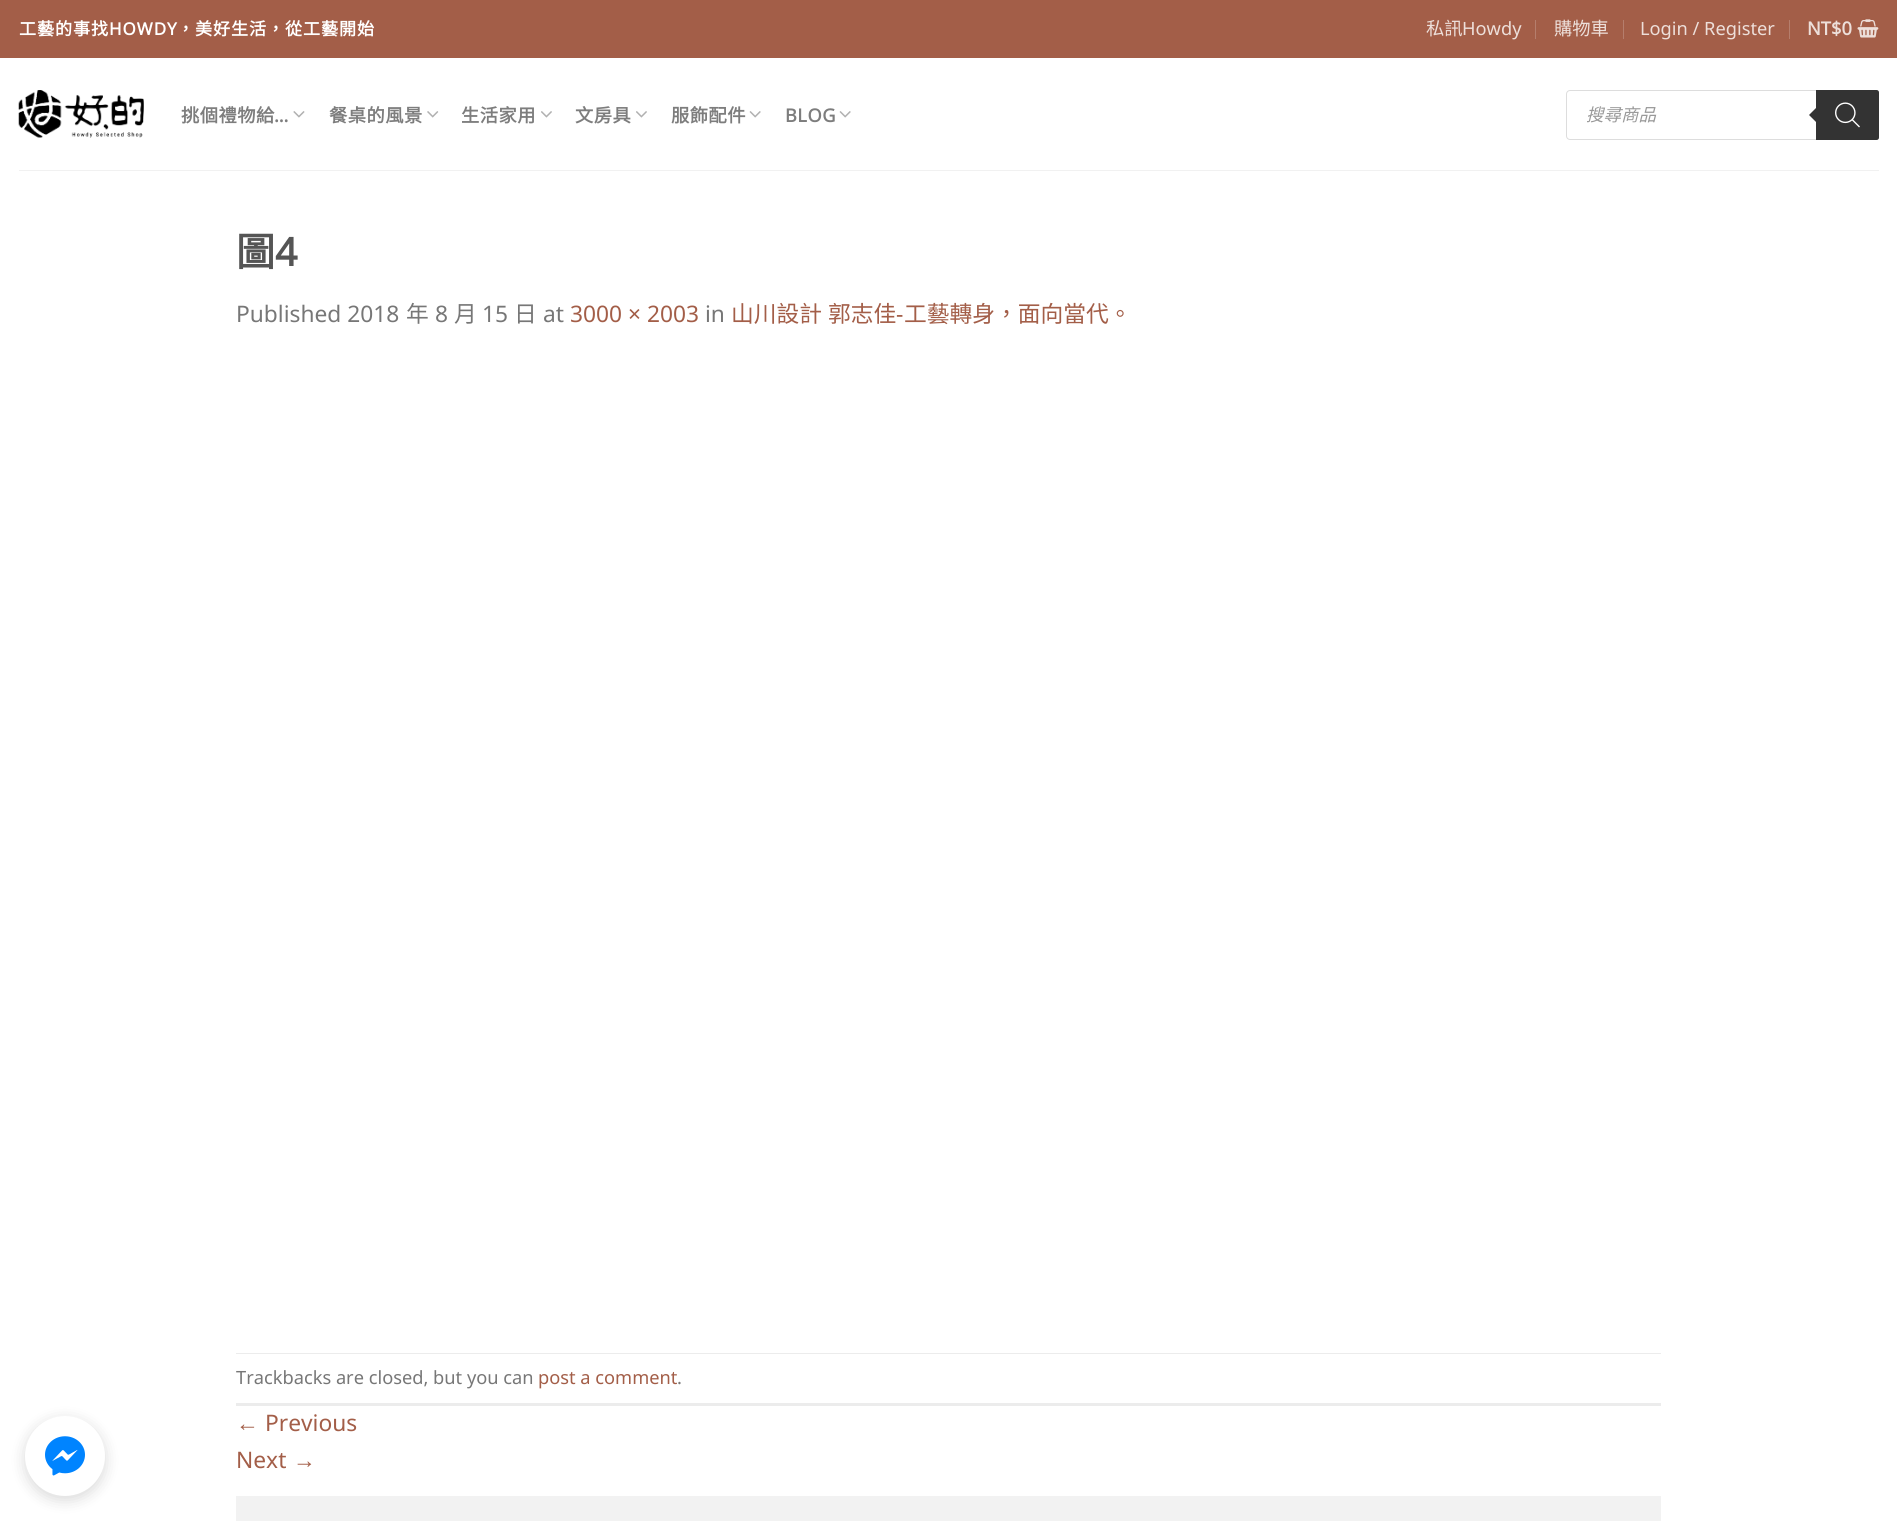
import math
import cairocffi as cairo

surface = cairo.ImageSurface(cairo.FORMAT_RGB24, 1897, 1521)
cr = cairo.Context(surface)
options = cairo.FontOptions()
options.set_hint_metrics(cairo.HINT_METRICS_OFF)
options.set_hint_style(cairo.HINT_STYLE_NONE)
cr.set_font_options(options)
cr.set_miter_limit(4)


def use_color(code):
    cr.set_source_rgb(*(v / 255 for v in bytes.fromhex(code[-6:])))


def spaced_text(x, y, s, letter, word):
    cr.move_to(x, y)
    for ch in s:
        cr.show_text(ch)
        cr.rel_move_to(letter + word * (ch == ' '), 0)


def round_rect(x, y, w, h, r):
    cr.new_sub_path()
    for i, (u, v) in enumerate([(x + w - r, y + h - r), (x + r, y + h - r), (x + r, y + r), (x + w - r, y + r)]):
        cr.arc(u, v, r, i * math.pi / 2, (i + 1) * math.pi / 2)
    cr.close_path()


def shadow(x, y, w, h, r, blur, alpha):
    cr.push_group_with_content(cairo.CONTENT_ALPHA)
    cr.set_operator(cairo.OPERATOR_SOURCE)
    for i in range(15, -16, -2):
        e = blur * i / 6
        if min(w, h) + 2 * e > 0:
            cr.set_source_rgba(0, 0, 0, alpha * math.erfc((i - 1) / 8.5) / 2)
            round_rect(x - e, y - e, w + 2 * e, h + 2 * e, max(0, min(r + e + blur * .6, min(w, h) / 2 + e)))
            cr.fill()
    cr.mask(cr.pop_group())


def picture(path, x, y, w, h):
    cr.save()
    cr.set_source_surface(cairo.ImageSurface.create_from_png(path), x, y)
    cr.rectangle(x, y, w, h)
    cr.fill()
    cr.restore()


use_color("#ffffff")
cr.paint()
use_color("#a35e48")
cr.rectangle(0, 0, 1897, 58)
cr.fill()
cr.select_font_face("Noto Sans CJK TC", cairo.FONT_SLANT_NORMAL, cairo.FONT_WEIGHT_BOLD)
cr.set_font_size(17.1)
use_color("#ffffff")
spaced_text(19, 35, "工藝的事找", 0.9, 0)
cr.select_font_face("Noto Sans", cairo.FONT_SLANT_NORMAL, cairo.FONT_WEIGHT_BOLD)
spaced_text(109, 35, "HOWDY", 0.9, 0)
cr.select_font_face("Noto Sans CJK TC", cairo.FONT_SLANT_NORMAL, cairo.FONT_WEIGHT_BOLD)
spaced_text(177, 35, "，美好生活，從工藝開始", 0.9, 0)
cr.select_font_face("Noto Sans CJK TC")
cr.set_font_size(18.25)
use_color("#eddfda")
cr.move_to(1426, 35)
cr.show_text("私訊")
cr.select_font_face("Noto Sans")
cr.move_to(1462, 35)
cr.show_text("Howdy")
use_color("#b57e6d")
cr.rectangle(1535, 20, 1, 19)
cr.fill()
cr.select_font_face("Noto Sans CJK TC")
use_color("#eddfda")
cr.move_to(1554, 35)
cr.show_text("購物車")
use_color("#b57e6d")
cr.rectangle(1623, 20, 1, 19)
cr.fill()
cr.select_font_face("Noto Sans")
use_color("#eddfda")
cr.move_to(1640, 35)
cr.show_text("Login / Register")
use_color("#b57e6d")
cr.rectangle(1789, 20, 1, 19)
cr.fill()
cr.select_font_face("Noto Sans", cairo.FONT_SLANT_NORMAL, cairo.FONT_WEIGHT_BOLD)
use_color("#eddfda")
cr.move_to(1807, 35)
cr.show_text("NT$0")
picture("img1.png", 1857, 19, 22, 19)
picture("img2.png", 18, 90, 126, 48)
cr.select_font_face("Noto Sans CJK TC", cairo.FONT_SLANT_NORMAL, cairo.FONT_WEIGHT_BOLD)
use_color("#7d7d7d")
spaced_text(181, 122, "挑個禮物給", 0.5, 0)
picture("img3.png", 293, 111, 12, 7)
cr.select_font_face("Noto Sans", cairo.FONT_SLANT_NORMAL, cairo.FONT_WEIGHT_BOLD)
spaced_text(274, 122, "…", 0.5, 0)
cr.select_font_face("Noto Sans CJK TC", cairo.FONT_SLANT_NORMAL, cairo.FONT_WEIGHT_BOLD)
spaced_text(329, 122, "餐桌的風景", 0.5, 0)
picture("img4.png", 427, 111, 12, 7)
spaced_text(461, 122, "生活家用", 0.5, 0)
picture("img5.png", 541, 111, 11, 7)
spaced_text(575, 122, "文房具", 0.5, 0)
picture("img5.png", 636, 111, 11, 7)
spaced_text(671, 122, "服飾配件", 0.5, 0)
picture("img6.png", 749, 111, 12, 7)
cr.select_font_face("Noto Sans", cairo.FONT_SLANT_NORMAL, cairo.FONT_WEIGHT_BOLD)
spaced_text(785, 122, "BLOG", 0.5, 0)
picture("img6.png", 839, 111, 12, 7)
round_rect(1566.5, 90.5, 312, 49, 3.5)
use_color("#dddddd")
cr.set_line_width(1)
cr.stroke()
cr.select_font_face("Noto Sans CJK TC", cairo.FONT_SLANT_ITALIC)
cr.set_font_size(17.5)
use_color("#999999")
cr.move_to(1586, 121)
cr.show_text("搜尋商品")
use_color("#333333")
cr.new_path()
cr.move_to(1816, 90)
cr.line_to(1876.5, 90)
cr.curve_to(1878, 90, 1879, 91, 1879, 92.5)
cr.line_to(1879, 137.5)
cr.curve_to(1879, 139, 1878, 140, 1876.5, 140)
cr.line_to(1816, 140)
cr.close_path()
cr.fill()
cr.new_path()
cr.move_to(1819, 105)
cr.line_to(1819, 125)
cr.line_to(1809, 115)
cr.close_path()
cr.fill()
picture("img7.png", 1835, 102, 25, 26)
use_color("#f1f1f1")
cr.rectangle(19, 170, 1860, 1)
cr.fill()
cr.select_font_face("Noto Sans CJK TC", cairo.FONT_SLANT_NORMAL, cairo.FONT_WEIGHT_BOLD)
cr.set_font_size(39)
use_color("#555555")
cr.move_to(236, 266)
cr.show_text("圖")
cr.select_font_face("Noto Sans", cairo.FONT_SLANT_NORMAL, cairo.FONT_WEIGHT_BOLD)
cr.move_to(275, 266)
cr.show_text("4")
cr.select_font_face("Noto Sans")
cr.set_font_size(22.75)
use_color("#777777")
cr.move_to(236, 322)
cr.show_text("Published 2018")
cr.select_font_face("Noto Sans CJK TC")
cr.move_to(406, 322)
cr.show_text("年")
cr.select_font_face("Noto Sans")
cr.move_to(435, 322)
cr.show_text("8")
cr.select_font_face("Noto Sans CJK TC")
cr.move_to(454, 322)
cr.show_text("月")
cr.select_font_face("Noto Sans")
cr.move_to(482, 322)
cr.show_text("15")
cr.select_font_face("Noto Sans CJK TC")
cr.move_to(514, 322)
cr.show_text("日")
cr.select_font_face("Noto Sans")
cr.move_to(543, 322)
cr.show_text("at")
use_color("#a35e48")
cr.move_to(570, 322)
cr.show_text("3000 × 2003")
use_color("#777777")
cr.move_to(705, 322)
cr.show_text("in")
cr.select_font_face("Noto Sans CJK TC")
use_color("#a35e48")
spaced_text(731, 322, "山川設計 郭志佳", 0, 1)
cr.select_font_face("Noto Sans")
cr.move_to(896, 322)
cr.show_text("-")
cr.select_font_face("Noto Sans CJK TC")
cr.move_to(904, 322)
cr.show_text("工藝轉身，面向當代。")
use_color("#ececec")
cr.rectangle(236, 1353, 1425, 1)
cr.fill()
cr.rectangle(236, 1403, 1425, 3)
cr.fill()
cr.select_font_face("Noto Sans")
cr.set_font_size(18.25)
use_color("#777777")
cr.move_to(236, 1384)
cr.show_text("Trackbacks are closed, but you can")
use_color("#a35e48")
cr.move_to(538, 1384)
cr.show_text("post a comment")
use_color("#777777")
cr.move_to(677, 1384)
cr.show_text(".")
cr.select_font_face("Liberation Sans")
cr.set_font_size(22.75)
use_color("#a35e48")
cr.move_to(236, 1431)
cr.show_text("←")
cr.select_font_face("Noto Sans")
cr.move_to(265, 1431)
cr.show_text("Previous")
cr.move_to(236, 1468)
cr.show_text("Next")
cr.select_font_face("Liberation Sans")
cr.move_to(293, 1468)
cr.show_text("→")
use_color("#f2f2f2")
cr.rectangle(236, 1496, 1425, 25)
cr.fill()
use_color("#000000")
shadow(25, 1420, 80, 80, 40, 7.5, 0.15)
use_color("#ffffff")
cr.arc(65, 1456, 40, 0, 2 * math.pi)
cr.fill()
picture("img8.png", 45, 1436, 40, 40)
surface.write_to_png("result.png")
